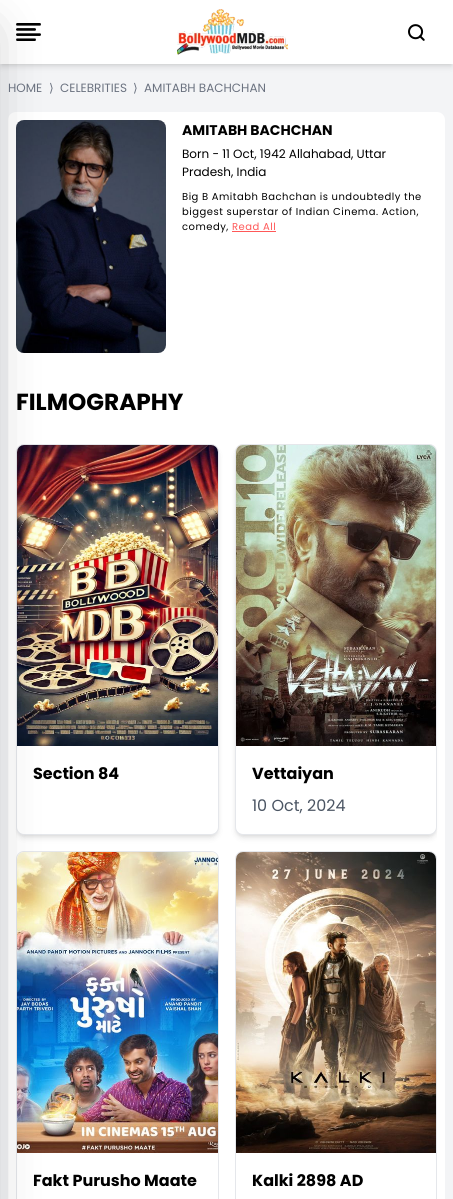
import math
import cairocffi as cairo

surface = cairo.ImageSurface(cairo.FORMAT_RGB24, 453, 1199)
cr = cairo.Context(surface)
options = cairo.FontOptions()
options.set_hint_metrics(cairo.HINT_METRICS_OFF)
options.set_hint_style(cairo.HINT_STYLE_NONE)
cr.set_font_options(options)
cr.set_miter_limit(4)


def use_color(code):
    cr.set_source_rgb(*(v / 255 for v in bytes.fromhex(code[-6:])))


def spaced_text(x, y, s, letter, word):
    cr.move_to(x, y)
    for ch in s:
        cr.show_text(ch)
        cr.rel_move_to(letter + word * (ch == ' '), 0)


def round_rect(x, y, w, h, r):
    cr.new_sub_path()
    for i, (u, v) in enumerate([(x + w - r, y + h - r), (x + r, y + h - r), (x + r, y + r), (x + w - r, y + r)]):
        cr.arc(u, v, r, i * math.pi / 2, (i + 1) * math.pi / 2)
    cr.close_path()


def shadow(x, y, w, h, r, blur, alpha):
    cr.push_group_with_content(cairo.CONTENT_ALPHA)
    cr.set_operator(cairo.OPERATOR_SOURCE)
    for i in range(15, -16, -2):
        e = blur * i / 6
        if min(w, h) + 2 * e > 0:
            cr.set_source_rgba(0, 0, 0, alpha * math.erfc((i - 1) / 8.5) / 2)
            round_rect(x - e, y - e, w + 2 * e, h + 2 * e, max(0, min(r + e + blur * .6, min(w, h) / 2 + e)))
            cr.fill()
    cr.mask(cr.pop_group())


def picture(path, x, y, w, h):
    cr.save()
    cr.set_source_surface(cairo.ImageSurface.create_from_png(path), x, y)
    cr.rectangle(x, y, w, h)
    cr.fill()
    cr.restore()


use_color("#f3f4f6")
cr.paint()
use_color("#000000")
shadow(2, 4, 449, 60, 0, 2, 0.1)
shadow(1, 5, 451, 62, 0, 3, 0.1)
use_color("#ffffff")
cr.rectangle(0, 0, 453, 64)
cr.fill()
picture("img1.png", 16, 23, 25, 18)
picture("img2.png", 177, 9, 111, 46)
picture("img3.png", 408, 24, 17, 17)
round_rect(8, 112, 437, 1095, 8)
cr.fill()
picture("img4.png", 16, 120, 150, 233)
use_color("#000000")
shadow(18, 448, 199, 387, 6, 2, 0.1)
cr.save()
cr.rectangle(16, 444, 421, 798)
cr.clip()
shadow(17, 449, 201, 389, 7, 3, 0.1)
cr.restore()
use_color("#ffffff")
round_rect(16.5, 444.5, 202, 390, 7.5)
cr.fill_preserve()
use_color("#e5e7eb")
cr.set_line_width(1)
cr.stroke()
picture("img5.png", 17, 445, 201, 301)
round_rect(16.5, 851.5, 202, 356, 7.5)
cr.stroke()
picture("img7.png", 17, 852, 201, 301)
use_color("#000000")
shadow(-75, 32, 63, 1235, 0, 25, 0.25)
cr.select_font_face("Poppins")
cr.set_font_size(12)
use_color("#6b7280")
cr.move_to(8, 92)
cr.show_text("HOME")
cr.select_font_face("DejaVu Sans")
cr.move_to(49, 92)
cr.show_text("⟩")
cr.select_font_face("Poppins")
cr.move_to(60, 92)
cr.show_text("CELEBRITIES")
cr.select_font_face("DejaVu Sans")
cr.move_to(133, 92)
cr.show_text("⟩")
cr.select_font_face("Poppins")
cr.move_to(144, 92)
cr.show_text("AMITABH BACHCHAN")
cr.select_font_face("Poppins", cairo.FONT_SLANT_NORMAL, cairo.FONT_WEIGHT_BOLD)
cr.set_font_size(14)
use_color("#000000")
cr.move_to(182, 135)
cr.show_text("AMITABH BACHCHAN")
cr.select_font_face("Poppins")
cr.set_font_size(12)
cr.move_to(182, 158)
cr.show_text("Born - 11 Oct, 1942 Allahabad, Uttar")
cr.move_to(182, 176)
cr.show_text("Pradesh, India")
cr.set_font_size(10)
spaced_text(182, 200, "Big B Amitabh Bachchan is undoubtedly the", 0.5, 0)
spaced_text(182, 215, "biggest superstar of Indian Cinema. Action,", 0.5, 0)
spaced_text(182, 230, "comedy,", 0.5, 0)
use_color("#ff5858")
spaced_text(232, 230, "Read All", 0.5, 0)
cr.rectangle(232, 231, 44, 1)
cr.fill()
cr.select_font_face("Poppins", cairo.FONT_SLANT_NORMAL, cairo.FONT_WEIGHT_BOLD)
cr.set_font_size(23.25)
use_color("#000000")
cr.move_to(16, 410)
cr.show_text("FILMOGRAPHY")
cr.set_font_size(16)
cr.move_to(33, 779)
cr.show_text("Section 84")
use_color("#000000")
shadow(237, 448, 198, 387, 6, 2, 0.1)
cr.save()
cr.rectangle(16, 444, 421, 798)
cr.clip()
shadow(236, 449, 200, 389, 7, 3, 0.1)
cr.restore()
use_color("#ffffff")
round_rect(235.5, 444.5, 201, 390, 7.5)
cr.fill_preserve()
use_color("#e5e7eb")
cr.stroke()
picture("img6.png", 236, 445, 200, 301)
use_color("#000000")
cr.move_to(252, 779)
cr.show_text("Vettaiyan")
cr.select_font_face("Poppins")
use_color("#4b5563")
cr.move_to(252, 811)
cr.show_text("10 Oct, 2024")
cr.select_font_face("Poppins", cairo.FONT_SLANT_NORMAL, cairo.FONT_WEIGHT_BOLD)
use_color("#000000")
cr.move_to(33, 1186)
cr.show_text("Fakt Purusho Maate")
round_rect(235.5, 851.5, 201, 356, 7.5)
use_color("#e5e7eb")
cr.stroke()
picture("img8.png", 236, 852, 200, 301)
use_color("#000000")
cr.move_to(252, 1186)
cr.show_text("Kalki 2898 AD")
surface.write_to_png("result.png")
